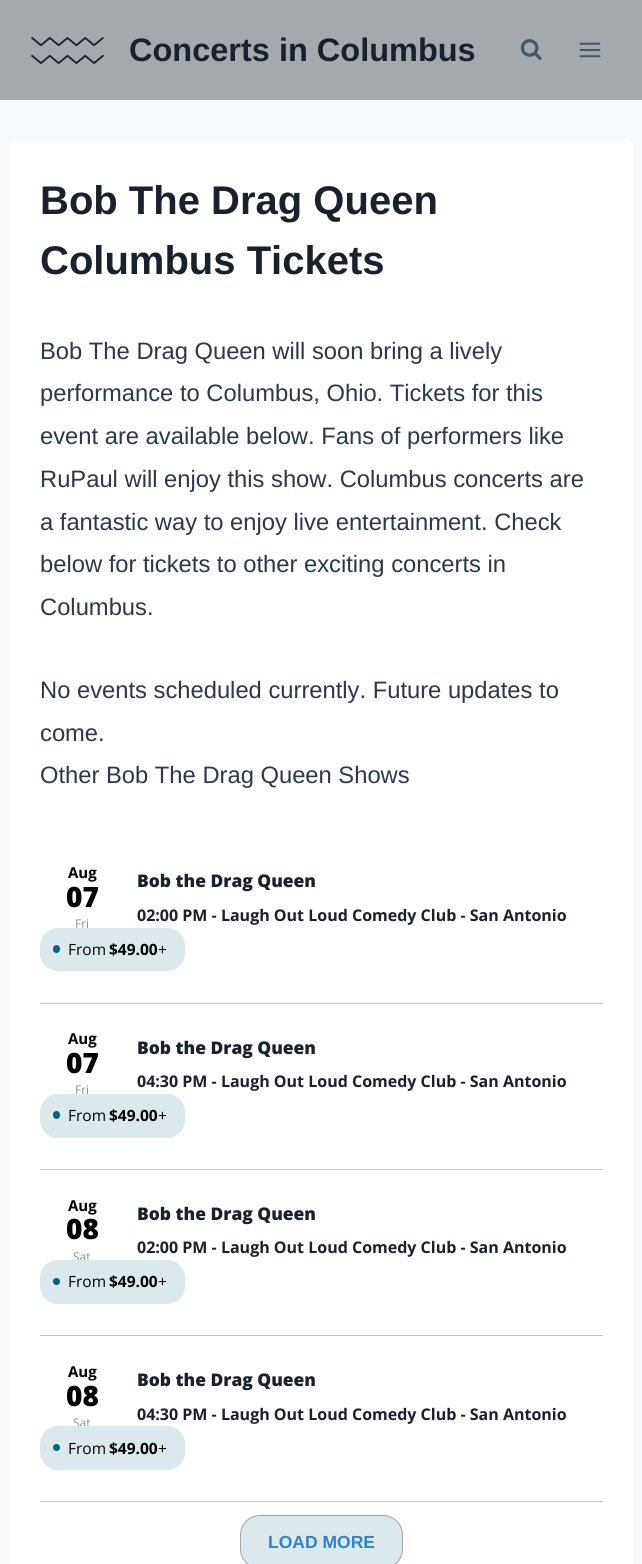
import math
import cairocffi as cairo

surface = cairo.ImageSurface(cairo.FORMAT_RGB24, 642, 1564)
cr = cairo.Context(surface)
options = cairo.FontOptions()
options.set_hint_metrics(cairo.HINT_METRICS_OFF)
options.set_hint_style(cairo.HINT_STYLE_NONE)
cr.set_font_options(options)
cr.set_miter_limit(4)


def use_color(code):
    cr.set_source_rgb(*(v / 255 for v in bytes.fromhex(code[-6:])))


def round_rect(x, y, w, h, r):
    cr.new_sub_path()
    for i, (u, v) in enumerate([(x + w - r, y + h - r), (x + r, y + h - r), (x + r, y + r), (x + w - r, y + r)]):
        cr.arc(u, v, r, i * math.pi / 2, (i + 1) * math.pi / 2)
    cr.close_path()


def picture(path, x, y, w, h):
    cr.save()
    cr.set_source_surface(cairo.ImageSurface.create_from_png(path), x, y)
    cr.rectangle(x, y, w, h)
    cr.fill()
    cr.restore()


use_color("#f7fafc")
cr.paint()
use_color("#a4a9ad")
cr.rectangle(0, 0, 642, 100)
cr.fill()
picture("img1.png", 31, 37, 73, 27)
cr.select_font_face("Liberation Sans", cairo.FONT_SLANT_NORMAL, cairo.FONT_WEIGHT_BOLD)
cr.set_font_size(32.5)
use_color("#1a202c")
cr.move_to(129, 61)
cr.show_text("Concerts in Columbus")
picture("img2.png", 520, 39, 22, 21)
picture("img3.png", 579, 42, 22, 16)
use_color("#ffffff")
round_rect(10, 140, 623, 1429, 5)
cr.fill()
cr.set_font_size(40)
use_color("#1a202c")
cr.move_to(40, 214)
cr.show_text("Bob The Drag Queen")
cr.move_to(40, 274)
cr.show_text("Columbus Tickets")
cr.select_font_face("Liberation Sans")
cr.set_font_size(23.75)
use_color("#2d3748")
cr.move_to(40, 359)
cr.show_text("Bob The Drag Queen will soon bring a lively")
cr.move_to(40, 401)
cr.show_text("performance to Columbus, Ohio. Tickets for this")
cr.move_to(40, 444)
cr.show_text("event are available below. Fans of performers like")
cr.move_to(40, 487)
cr.show_text("RuPaul will enjoy this show. Columbus concerts are")
cr.move_to(40, 530)
cr.show_text("a fantastic way to enjoy live entertainment. Check")
cr.move_to(40, 572)
cr.show_text("below for tickets to other exciting concerts in")
cr.move_to(40, 615)
cr.show_text("Columbus.")
cr.move_to(40, 698)
cr.show_text("No events scheduled currently. Future updates to")
cr.move_to(40, 741)
cr.show_text("come.")
cr.move_to(40, 783)
cr.show_text("Other Bob The Drag Queen Shows")
use_color("#c6c6c6")
cr.rectangle(40, 1003, 563, 1)
cr.fill()
cr.select_font_face("Open Sans", cairo.FONT_SLANT_NORMAL, cairo.FONT_WEIGHT_BOLD)
cr.set_font_size(15)
use_color("#000000")
cr.move_to(68, 878)
cr.show_text("Aug")
cr.select_font_face("Open Sans ExtraBold")
cr.set_font_size(28)
cr.move_to(66, 907)
cr.show_text("07")
cr.select_font_face("Open Sans")
cr.set_font_size(12)
use_color("#919191")
cr.move_to(75, 928)
cr.show_text("Fri")
cr.select_font_face("Open Sans ExtraBold")
cr.set_font_size(17.4)
use_color("#1a202c")
cr.move_to(137, 887)
cr.show_text("Bob the Drag Queen")
cr.select_font_face("Open Sans", cairo.FONT_SLANT_NORMAL, cairo.FONT_WEIGHT_BOLD)
cr.set_font_size(16)
cr.move_to(137, 921)
cr.show_text("02:00 PM - Laugh Out Loud Comedy Club - San Antonio")
use_color("#dbe9ec")
round_rect(40, 928, 145, 43, 18)
cr.fill()
use_color("#016678")
round_rect(53, 945, 7, 8, 3.5)
cr.fill()
cr.select_font_face("Open Sans")
cr.set_font_size(15.5)
use_color("#000000")
cr.move_to(68, 955)
cr.show_text("From")
cr.select_font_face("Open Sans", cairo.FONT_SLANT_NORMAL, cairo.FONT_WEIGHT_BOLD)
cr.move_to(109, 955)
cr.show_text("$49.00")
cr.select_font_face("Open Sans")
cr.move_to(158, 955)
cr.show_text("+")
use_color("#c6c6c6")
cr.rectangle(40, 1169, 563, 1)
cr.fill()
cr.select_font_face("Open Sans", cairo.FONT_SLANT_NORMAL, cairo.FONT_WEIGHT_BOLD)
cr.set_font_size(15)
use_color("#000000")
cr.move_to(68, 1044)
cr.show_text("Aug")
cr.select_font_face("Open Sans ExtraBold")
cr.set_font_size(28)
cr.move_to(66, 1073)
cr.show_text("07")
cr.select_font_face("Open Sans")
cr.set_font_size(12)
use_color("#919191")
cr.move_to(75, 1094)
cr.show_text("Fri")
cr.select_font_face("Open Sans ExtraBold")
cr.set_font_size(17.4)
use_color("#1a202c")
cr.move_to(137, 1054)
cr.show_text("Bob the Drag Queen")
cr.select_font_face("Open Sans", cairo.FONT_SLANT_NORMAL, cairo.FONT_WEIGHT_BOLD)
cr.set_font_size(16)
cr.move_to(137, 1087)
cr.show_text("04:30 PM - Laugh Out Loud Comedy Club - San Antonio")
use_color("#dbe9ec")
round_rect(40, 1094, 145, 44, 18)
cr.fill()
use_color("#016678")
round_rect(53, 1111, 7, 8, 3.5)
cr.fill()
cr.select_font_face("Open Sans")
cr.set_font_size(15.5)
use_color("#000000")
cr.move_to(68, 1121)
cr.show_text("From")
cr.select_font_face("Open Sans", cairo.FONT_SLANT_NORMAL, cairo.FONT_WEIGHT_BOLD)
cr.move_to(109, 1121)
cr.show_text("$49.00")
cr.select_font_face("Open Sans")
cr.move_to(158, 1121)
cr.show_text("+")
use_color("#c6c6c6")
cr.rectangle(40, 1335, 563, 1)
cr.fill()
cr.select_font_face("Open Sans", cairo.FONT_SLANT_NORMAL, cairo.FONT_WEIGHT_BOLD)
cr.set_font_size(15)
use_color("#000000")
cr.move_to(68, 1211)
cr.show_text("Aug")
cr.select_font_face("Open Sans ExtraBold")
cr.set_font_size(28)
cr.move_to(66, 1239)
cr.show_text("08")
cr.select_font_face("Open Sans")
cr.set_font_size(12)
use_color("#919191")
cr.move_to(73, 1261)
cr.show_text("Sat")
cr.select_font_face("Open Sans ExtraBold")
cr.set_font_size(17.4)
use_color("#1a202c")
cr.move_to(137, 1220)
cr.show_text("Bob the Drag Queen")
cr.select_font_face("Open Sans", cairo.FONT_SLANT_NORMAL, cairo.FONT_WEIGHT_BOLD)
cr.set_font_size(16)
cr.move_to(137, 1253)
cr.show_text("02:00 PM - Laugh Out Loud Comedy Club - San Antonio")
use_color("#dbe9ec")
round_rect(40, 1260, 145, 44, 18)
cr.fill()
use_color("#016678")
cr.arc(56.5, 1281.5, 3.5, 0, 2 * math.pi)
cr.fill()
cr.select_font_face("Open Sans")
cr.set_font_size(15.5)
use_color("#000000")
cr.move_to(68, 1287)
cr.show_text("From")
cr.select_font_face("Open Sans", cairo.FONT_SLANT_NORMAL, cairo.FONT_WEIGHT_BOLD)
cr.move_to(109, 1287)
cr.show_text("$49.00")
cr.select_font_face("Open Sans")
cr.move_to(158, 1287)
cr.show_text("+")
use_color("#c6c6c6")
cr.rectangle(40, 1501, 563, 1)
cr.fill()
cr.select_font_face("Open Sans", cairo.FONT_SLANT_NORMAL, cairo.FONT_WEIGHT_BOLD)
cr.set_font_size(15)
use_color("#000000")
cr.move_to(68, 1377)
cr.show_text("Aug")
cr.select_font_face("Open Sans ExtraBold")
cr.set_font_size(28)
cr.move_to(66, 1406)
cr.show_text("08")
cr.select_font_face("Open Sans")
cr.set_font_size(12)
use_color("#919191")
cr.move_to(73, 1427)
cr.show_text("Sat")
cr.select_font_face("Open Sans ExtraBold")
cr.set_font_size(17.4)
use_color("#1a202c")
cr.move_to(137, 1386)
cr.show_text("Bob the Drag Queen")
cr.select_font_face("Open Sans", cairo.FONT_SLANT_NORMAL, cairo.FONT_WEIGHT_BOLD)
cr.set_font_size(16)
cr.move_to(137, 1420)
cr.show_text("04:30 PM - Laugh Out Loud Comedy Club - San Antonio")
use_color("#dbe9ec")
round_rect(40, 1426, 145, 44, 18)
cr.fill()
use_color("#016678")
cr.arc(56.5, 1447.5, 3.5, 0, 2 * math.pi)
cr.fill()
cr.select_font_face("Open Sans")
cr.set_font_size(15.5)
use_color("#000000")
cr.move_to(68, 1454)
cr.show_text("From")
cr.select_font_face("Open Sans", cairo.FONT_SLANT_NORMAL, cairo.FONT_WEIGHT_BOLD)
cr.move_to(109, 1454)
cr.show_text("$49.00")
cr.select_font_face("Open Sans")
cr.move_to(158, 1454)
cr.show_text("+")
use_color("#dbe9ec")
round_rect(240.5, 1515.5, 162, 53, 19.5)
cr.fill_preserve()
use_color("#a4a4a4")
cr.set_line_width(1)
cr.stroke()
cr.select_font_face("Liberation Sans", cairo.FONT_SLANT_NORMAL, cairo.FONT_WEIGHT_BOLD)
cr.set_font_size(17.5)
use_color("#3182ce")
cr.move_to(268, 1548)
cr.show_text("LOAD MORE")
surface.write_to_png("result.png")
